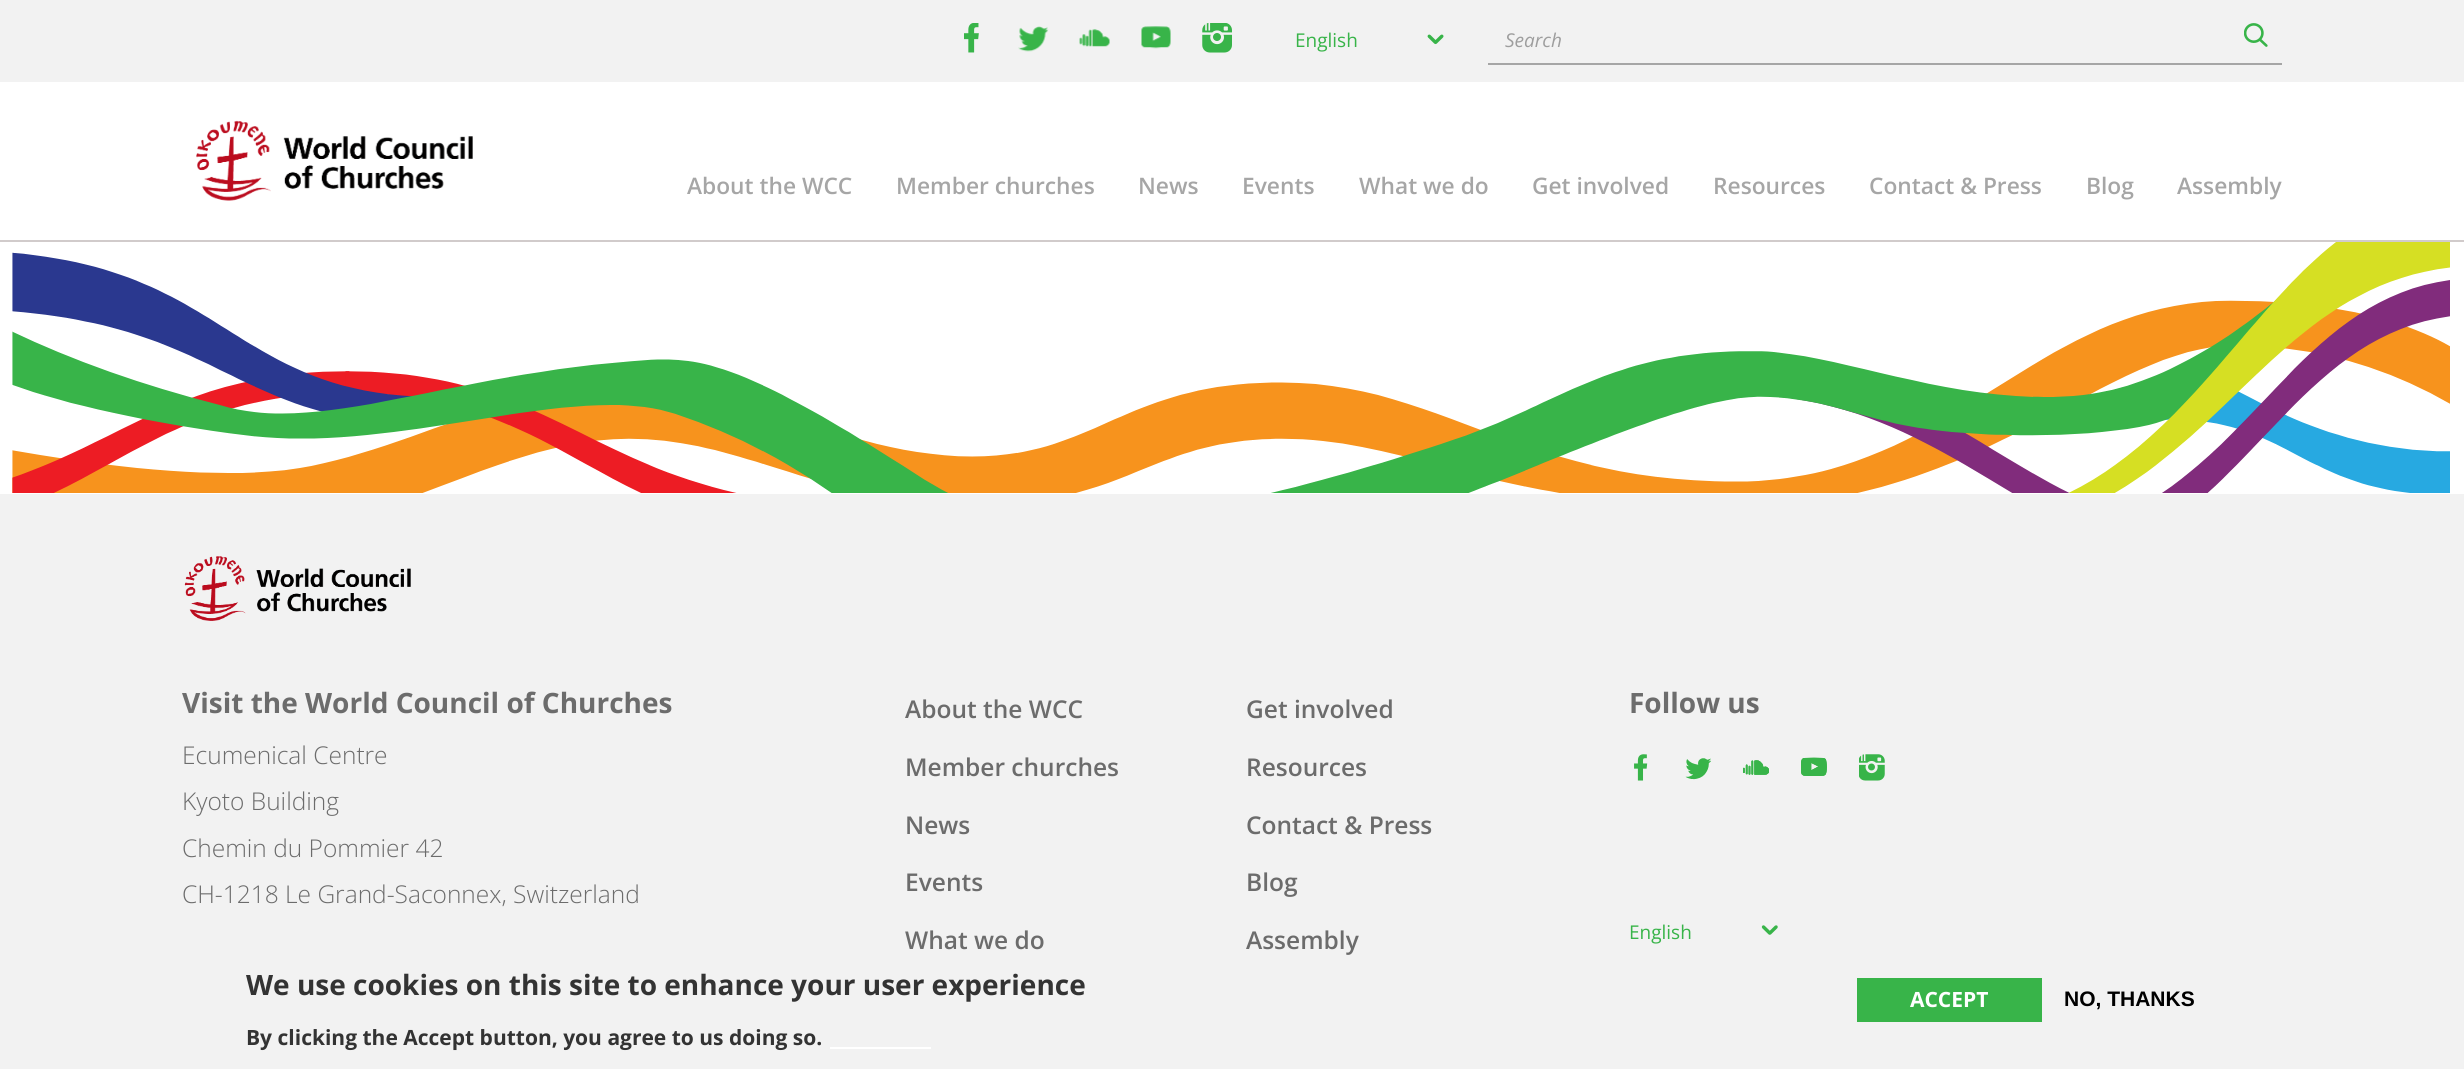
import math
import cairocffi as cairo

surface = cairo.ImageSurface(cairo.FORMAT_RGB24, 2464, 1069)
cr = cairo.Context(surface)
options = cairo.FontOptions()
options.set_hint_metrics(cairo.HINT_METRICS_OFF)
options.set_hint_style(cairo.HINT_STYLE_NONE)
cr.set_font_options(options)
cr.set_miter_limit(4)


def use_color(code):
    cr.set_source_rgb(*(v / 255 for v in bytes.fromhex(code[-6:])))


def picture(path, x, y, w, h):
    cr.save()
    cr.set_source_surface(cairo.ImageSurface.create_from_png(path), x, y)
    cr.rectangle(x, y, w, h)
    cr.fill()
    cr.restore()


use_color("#f2f2f2")
cr.paint()
use_color("#ffffff")
cr.rectangle(0, 82, 2464, 158)
cr.fill()
picture("img1.png", 964, 23, 15, 30)
picture("img2.png", 1018, 26, 31, 26)
picture("img3.png", 1079, 29, 31, 18)
picture("img4.png", 1141, 26, 30, 23)
picture("img5.png", 1202, 23, 30, 30)
cr.select_font_face("Open Sans")
cr.set_font_size(19)
use_color("#38b449")
cr.move_to(1295, 47)
cr.show_text("English")
picture("img6.png", 1427, 34, 17, 11)
use_color("#a6a6a6")
cr.rectangle(1488, 63, 794, 2)
cr.fill()
cr.select_font_face("Open Sans", cairo.FONT_SLANT_ITALIC)
use_color("#9e9e9e")
cr.move_to(1505, 47)
cr.show_text("Search")
picture("img7.png", 2244, 23, 24, 24)
use_color("#d1cbcb")
cr.rectangle(0, 240, 2464, 2)
cr.fill()
picture("img8.png", 196, 120, 277, 81)
cr.select_font_face("Open Sans SemiBold")
cr.set_font_size(22.75)
use_color("#a6a6a6")
cr.move_to(687, 194)
cr.show_text("About the WCC")
cr.move_to(896, 194)
cr.show_text("Member churches")
cr.move_to(1138, 194)
cr.show_text("News")
cr.move_to(1242, 194)
cr.show_text("Events")
cr.move_to(1359, 194)
cr.show_text("What we do")
cr.move_to(1532, 194)
cr.show_text("Get involved")
cr.move_to(1713, 194)
cr.show_text("Resources")
cr.move_to(1869, 194)
cr.show_text("Contact & Press")
cr.move_to(2086, 194)
cr.show_text("Blog")
cr.move_to(2177, 194)
cr.show_text("Assembly")
use_color("#ffffff")
cr.rectangle(0, 242, 2464, 252)
cr.fill()
picture("img9.png", 12, 242, 2438, 251)
picture("img10.png", 184, 556, 227, 65)
cr.select_font_face("Open Sans", cairo.FONT_SLANT_NORMAL, cairo.FONT_WEIGHT_BOLD)
cr.set_font_size(28)
use_color("#6c6c6c")
cr.move_to(182, 713)
cr.show_text("Visit the World Council of Churches")
cr.select_font_face("Open Sans Light")
cr.set_font_size(24.5)
cr.move_to(182, 764)
cr.show_text("Ecumenical Centre")
cr.move_to(182, 810)
cr.show_text("Kyoto Building")
cr.move_to(182, 857)
cr.show_text("Chemin du Pommier 42")
cr.move_to(182, 903)
cr.show_text("CH-1218 Le Grand-Saconnex, Switzerland")
cr.select_font_face("Open Sans SemiBold")
cr.move_to(905, 718)
cr.show_text("About the WCC")
cr.move_to(1246, 718)
cr.show_text("Get involved")
cr.move_to(905, 776)
cr.show_text("Member churches")
cr.move_to(1246, 776)
cr.show_text("Resources")
cr.move_to(905, 834)
cr.show_text("News")
cr.move_to(1246, 834)
cr.show_text("Contact & Press")
cr.move_to(905, 891)
cr.show_text("Events")
cr.move_to(1246, 891)
cr.show_text("Blog")
cr.move_to(905, 949)
cr.show_text("What we do")
cr.move_to(1246, 949)
cr.show_text("Assembly")
cr.select_font_face("Open Sans", cairo.FONT_SLANT_NORMAL, cairo.FONT_WEIGHT_BOLD)
cr.set_font_size(28)
cr.move_to(1629, 713)
cr.show_text("Follow us")
picture("img11.png", 1634, 754, 14, 27)
picture("img12.png", 1685, 758, 26, 22)
picture("img13.png", 1743, 760, 26, 15)
picture("img14.png", 1801, 757, 26, 19)
picture("img15.png", 1859, 754, 26, 27)
cr.select_font_face("Open Sans")
cr.set_font_size(19)
use_color("#38b449")
cr.move_to(1629, 939)
cr.show_text("English")
picture("img16.png", 1761, 925, 17, 10)
cr.select_font_face("Open Sans", cairo.FONT_SLANT_NORMAL, cairo.FONT_WEIGHT_BOLD)
cr.set_font_size(28)
use_color("#333333")
cr.move_to(246, 995)
cr.show_text("We use cookies on this site to enhance your user experience")
cr.set_font_size(21)
cr.move_to(246, 1045)
cr.show_text("By clicking the Accept button, you agree to us doing so.")
use_color("#ffffff")
cr.rectangle(830, 1047, 101, 2)
cr.fill()
use_color("#38b449")
cr.rectangle(1857, 978, 185, 44)
cr.fill()
use_color("#ffffff")
cr.move_to(1910, 1007)
cr.show_text("ACCEPT")
cr.select_font_face("Liberation Sans", cairo.FONT_SLANT_NORMAL, cairo.FONT_WEIGHT_BOLD)
use_color("#000000")
cr.move_to(2064, 1006)
cr.show_text("NO, THANKS")
surface.write_to_png("result.png")
